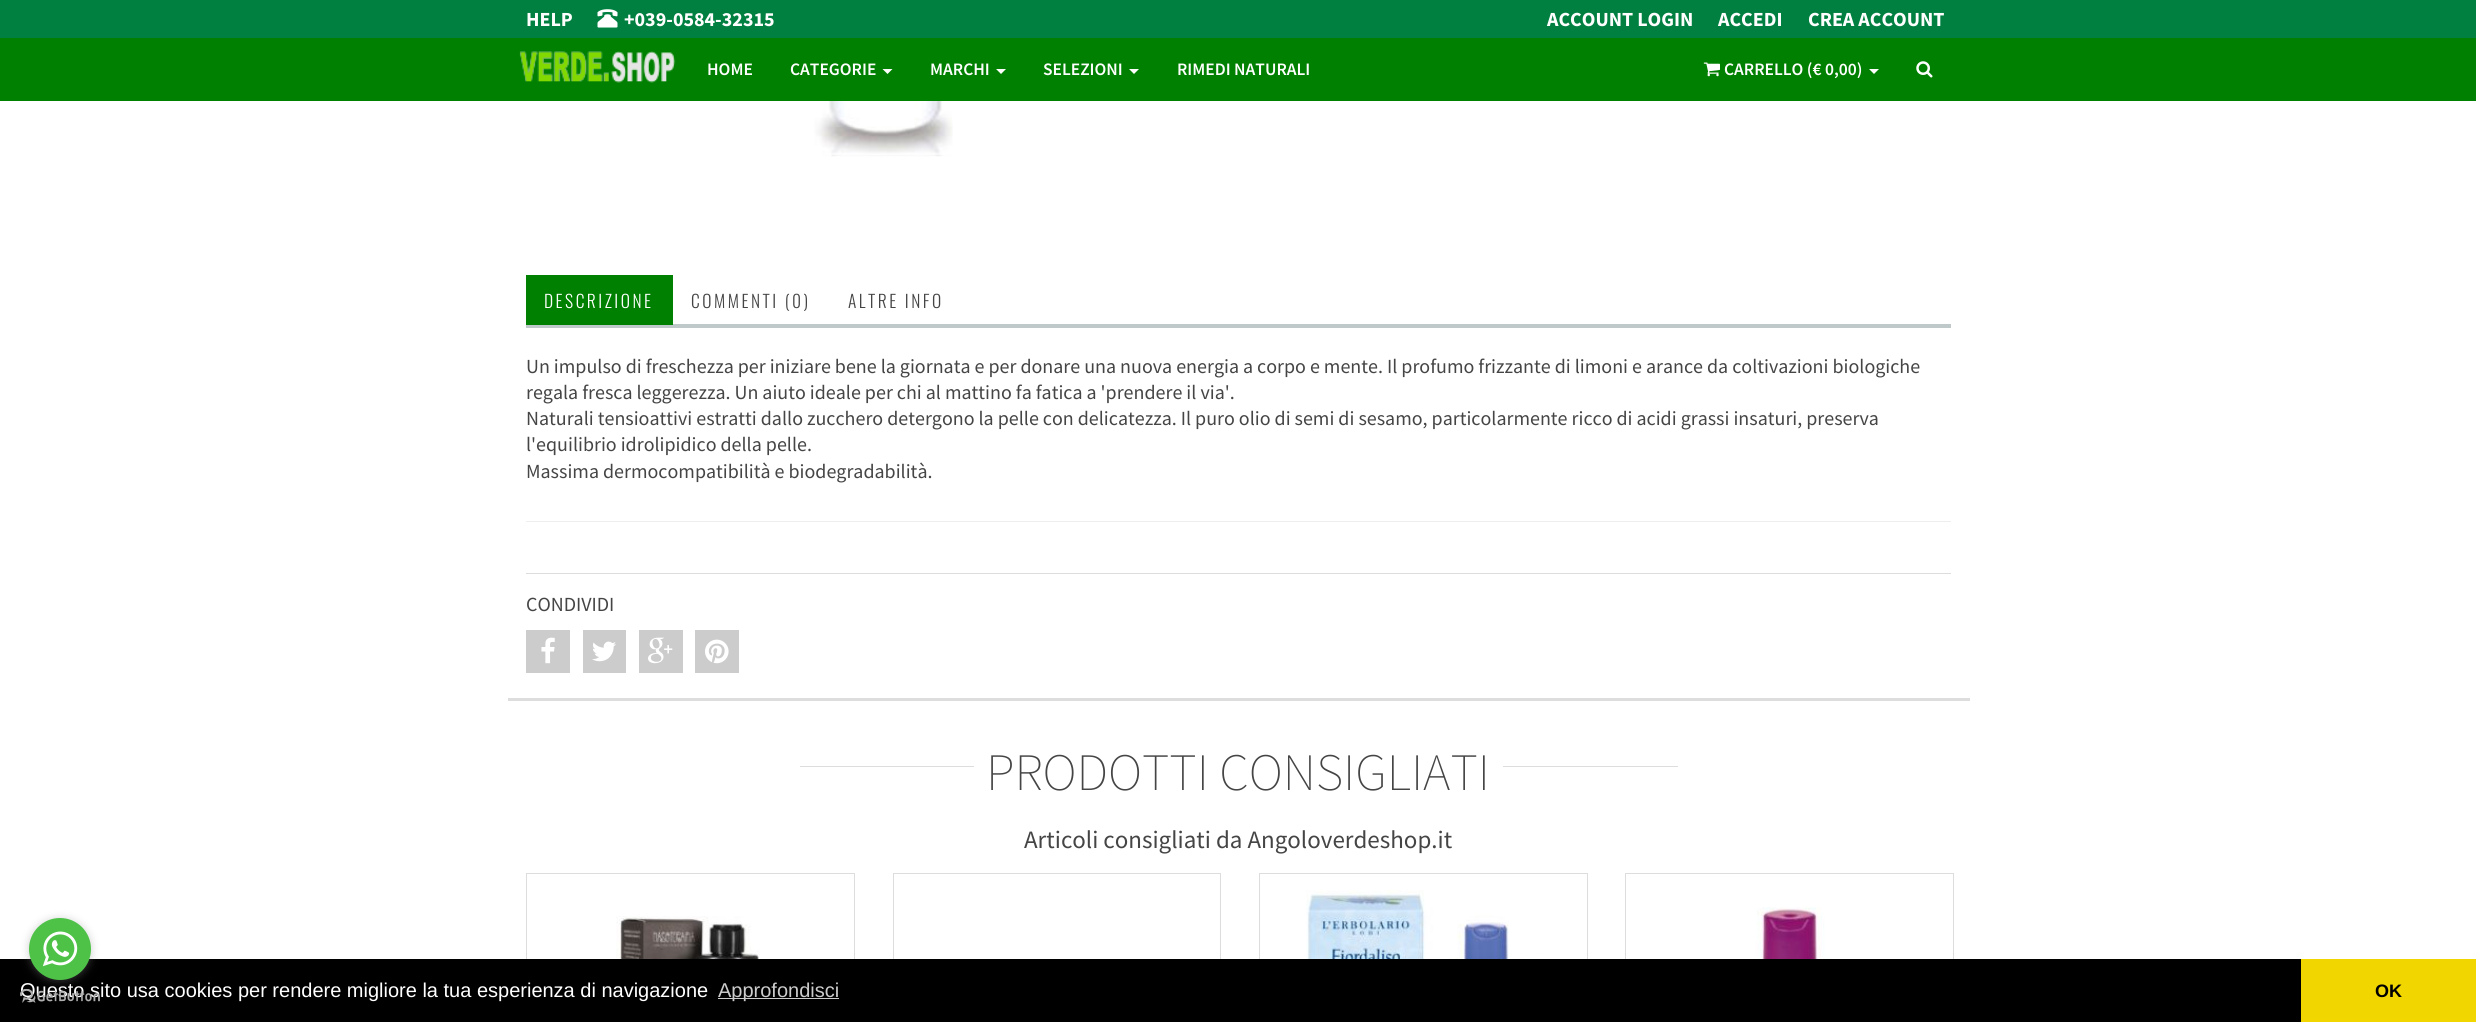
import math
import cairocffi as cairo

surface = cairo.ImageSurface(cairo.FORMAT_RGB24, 2476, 1022)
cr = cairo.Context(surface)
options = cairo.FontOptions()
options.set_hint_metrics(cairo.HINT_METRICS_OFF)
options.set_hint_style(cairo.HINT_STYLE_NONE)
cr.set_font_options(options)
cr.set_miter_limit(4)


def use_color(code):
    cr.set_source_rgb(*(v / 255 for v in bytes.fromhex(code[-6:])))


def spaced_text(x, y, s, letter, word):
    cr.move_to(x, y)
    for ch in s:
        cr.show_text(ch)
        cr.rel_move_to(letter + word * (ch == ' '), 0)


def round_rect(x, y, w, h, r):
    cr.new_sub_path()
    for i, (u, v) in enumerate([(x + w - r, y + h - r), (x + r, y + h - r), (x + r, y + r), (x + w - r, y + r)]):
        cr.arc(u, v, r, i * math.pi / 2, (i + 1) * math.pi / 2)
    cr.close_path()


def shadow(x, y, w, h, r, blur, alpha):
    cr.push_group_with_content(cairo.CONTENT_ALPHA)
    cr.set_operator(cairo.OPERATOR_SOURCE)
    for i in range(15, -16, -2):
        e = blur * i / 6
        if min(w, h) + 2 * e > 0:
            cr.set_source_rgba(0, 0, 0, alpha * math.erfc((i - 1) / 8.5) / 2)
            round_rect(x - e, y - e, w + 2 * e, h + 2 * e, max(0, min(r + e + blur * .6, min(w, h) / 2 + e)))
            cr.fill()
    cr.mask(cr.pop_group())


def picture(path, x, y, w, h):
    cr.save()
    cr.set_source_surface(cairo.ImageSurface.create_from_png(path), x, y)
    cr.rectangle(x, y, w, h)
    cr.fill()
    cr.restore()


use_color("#ffffff")
cr.paint()
use_color("#008000")
cr.rectangle(0, 38, 2476, 63)
cr.fill()
use_color("#008040")
cr.rectangle(0, 0, 2476, 38)
cr.fill()
cr.select_font_face("Source Sans Pro", cairo.FONT_SLANT_NORMAL, cairo.FONT_WEIGHT_BOLD)
cr.set_font_size(20)
use_color("#ffffff")
cr.move_to(526, 26)
cr.show_text("HELP")
picture("img1.png", 597, 9, 21, 19)
cr.move_to(624, 26)
cr.show_text("+039-0584-32315")
cr.move_to(1547, 26)
cr.show_text("ACCOUNT LOGIN")
cr.move_to(1718, 26)
cr.show_text("ACCEDI")
cr.move_to(1808, 26)
cr.show_text("CREA ACCOUNT")
picture("img2.png", 519, 51, 157, 32)
cr.select_font_face("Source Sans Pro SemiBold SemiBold")
cr.set_font_size(17.5)
cr.move_to(707, 75)
cr.show_text("HOME")
cr.move_to(790, 75)
cr.show_text("CATEGORIE")
cr.new_path()
cr.move_to(882.5, 69)
cr.line_to(892.5, 69)
cr.line_to(887.5, 74)
cr.close_path()
cr.fill()
cr.move_to(930, 75)
cr.show_text("MARCHI")
cr.new_path()
cr.move_to(996, 69)
cr.line_to(1006, 69)
cr.line_to(1001, 74)
cr.close_path()
cr.fill()
cr.move_to(1043, 75)
cr.show_text("SELEZIONI")
cr.new_path()
cr.move_to(1129, 69)
cr.line_to(1139, 69)
cr.line_to(1134, 74)
cr.close_path()
cr.fill()
cr.move_to(1177, 75)
cr.show_text("RIMEDI NATURALI")
picture("img3.png", 1703, 62, 17, 15)
cr.move_to(1724, 75)
cr.show_text("CARRELLO (€ 0,00)")
cr.new_path()
cr.move_to(1869, 69)
cr.line_to(1879, 69)
cr.line_to(1874, 74)
cr.close_path()
cr.fill()
picture("img4.png", 1916, 61, 17, 17)
picture("img5.png", 813, 101, 140, 56)
use_color("#bfc9ca")
cr.rectangle(526, 324, 1425, 4)
cr.fill()
use_color("#008000")
cr.rectangle(526, 275, 147, 50)
cr.fill()
cr.select_font_face("Oswald Light")
use_color("#ffffff")
spaced_text(544, 308, "DESCRIZIONE", 2.5, 0)
use_color("#454545")
spaced_text(691, 308, "COMMENTI (0)", 2.5, 0)
spaced_text(848, 308, "ALTRE INFO", 2.5, 0)
cr.select_font_face("Source Sans Pro")
cr.set_font_size(20)
cr.move_to(526, 373)
cr.show_text("Un impulso di freschezza per iniziare bene la giornata e per donare una nuova energia a corpo e mente. Il profumo frizzante di limoni e arance da coltivazioni biologiche")
cr.move_to(526, 399)
cr.show_text("regala fresca leggerezza. Un aiuto ideale per chi al mattino fa fatica a 'prendere il via'.")
cr.move_to(526, 425)
cr.show_text("Naturali tensioattivi estratti dallo zucchero detergono la pelle con delicatezza. Il puro olio di semi di sesamo, particolarmente ricco di acidi grassi insaturi, preserva")
cr.move_to(526, 451)
cr.show_text("l'equilibrio idrolipidico della pelle.")
cr.move_to(526, 478)
cr.show_text("Massima dermocompatibilità e biodegradabilità.")
use_color("#eeeeee")
cr.rectangle(526, 521, 1425, 1)
cr.fill()
use_color("#dddddd")
cr.rectangle(526, 573, 1425, 1)
cr.fill()
use_color("#454545")
cr.move_to(526, 611)
cr.show_text("CONDIVIDI")
use_color("#cccccc")
cr.rectangle(526, 630, 44, 43)
cr.fill()
picture("img6.png", 541, 637, 14, 27)
cr.rectangle(583, 630, 43, 43)
cr.fill()
picture("img7.png", 592, 641, 24, 21)
cr.rectangle(639, 630, 44, 43)
cr.fill()
picture("img8.png", 648, 637, 25, 27)
cr.rectangle(695, 630, 44, 43)
cr.fill()
picture("img9.png", 705, 639, 24, 25)
use_color("#dddddd")
cr.rectangle(508, 698, 1462, 3)
cr.fill()
cr.rectangle(800, 766, 878, 1)
cr.fill()
use_color("#ffffff")
cr.rectangle(974, 766, 529, 1)
cr.fill()
cr.select_font_face("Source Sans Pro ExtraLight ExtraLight")
cr.set_font_size(52.5)
use_color("#454545")
cr.move_to(986, 790)
cr.show_text("PRODOTTI CONSIGLIATI")
cr.select_font_face("Source Sans Pro")
cr.set_font_size(25)
cr.move_to(1024, 848)
cr.show_text("Articoli consigliati da Angoloverdeshop.it")
cr.rectangle(526.5, 873.5, 328, 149)
use_color("#dddddd")
cr.set_line_width(1)
cr.stroke()
picture("img10.png", 616, 916, 144, 43)
cr.rectangle(893.5, 873.5, 327, 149)
cr.stroke()
cr.rectangle(1259.5, 873.5, 328, 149)
cr.stroke()
picture("img11.png", 1306, 890, 236, 69)
cr.rectangle(1625.5, 873.5, 328, 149)
cr.stroke()
picture("img12.png", 1740, 907, 97, 52)
use_color("#000000")
cr.rectangle(0, 959, 2301, 63)
cr.fill()
cr.select_font_face("Liberation Sans")
cr.set_font_size(20)
use_color("#ffffff")
cr.move_to(20, 997)
cr.show_text("Questo sito usa cookies per rendere migliore la tua esperienza di navigazione")
picture("img14.png", 20, 989, 80, 14)
use_color("#888888")
shadow(29, 919, 62, 62, 31, 4.5, 0.4)
use_color("#4dc247")
cr.arc(60, 949, 31, 0, 2 * math.pi)
cr.fill()
picture("img13.png", 42, 931, 36, 36)
use_color("#cccccc")
cr.rectangle(718, 998, 121, 1)
cr.fill()
cr.move_to(718, 997)
cr.show_text("Approfondisci")
use_color("#f1d600")
cr.rectangle(2301, 959, 175, 63)
cr.fill()
cr.select_font_face("Liberation Sans", cairo.FONT_SLANT_NORMAL, cairo.FONT_WEIGHT_BOLD)
cr.set_font_size(18)
use_color("#000000")
cr.move_to(2375, 997)
cr.show_text("OK")
surface.write_to_png("result.png")
